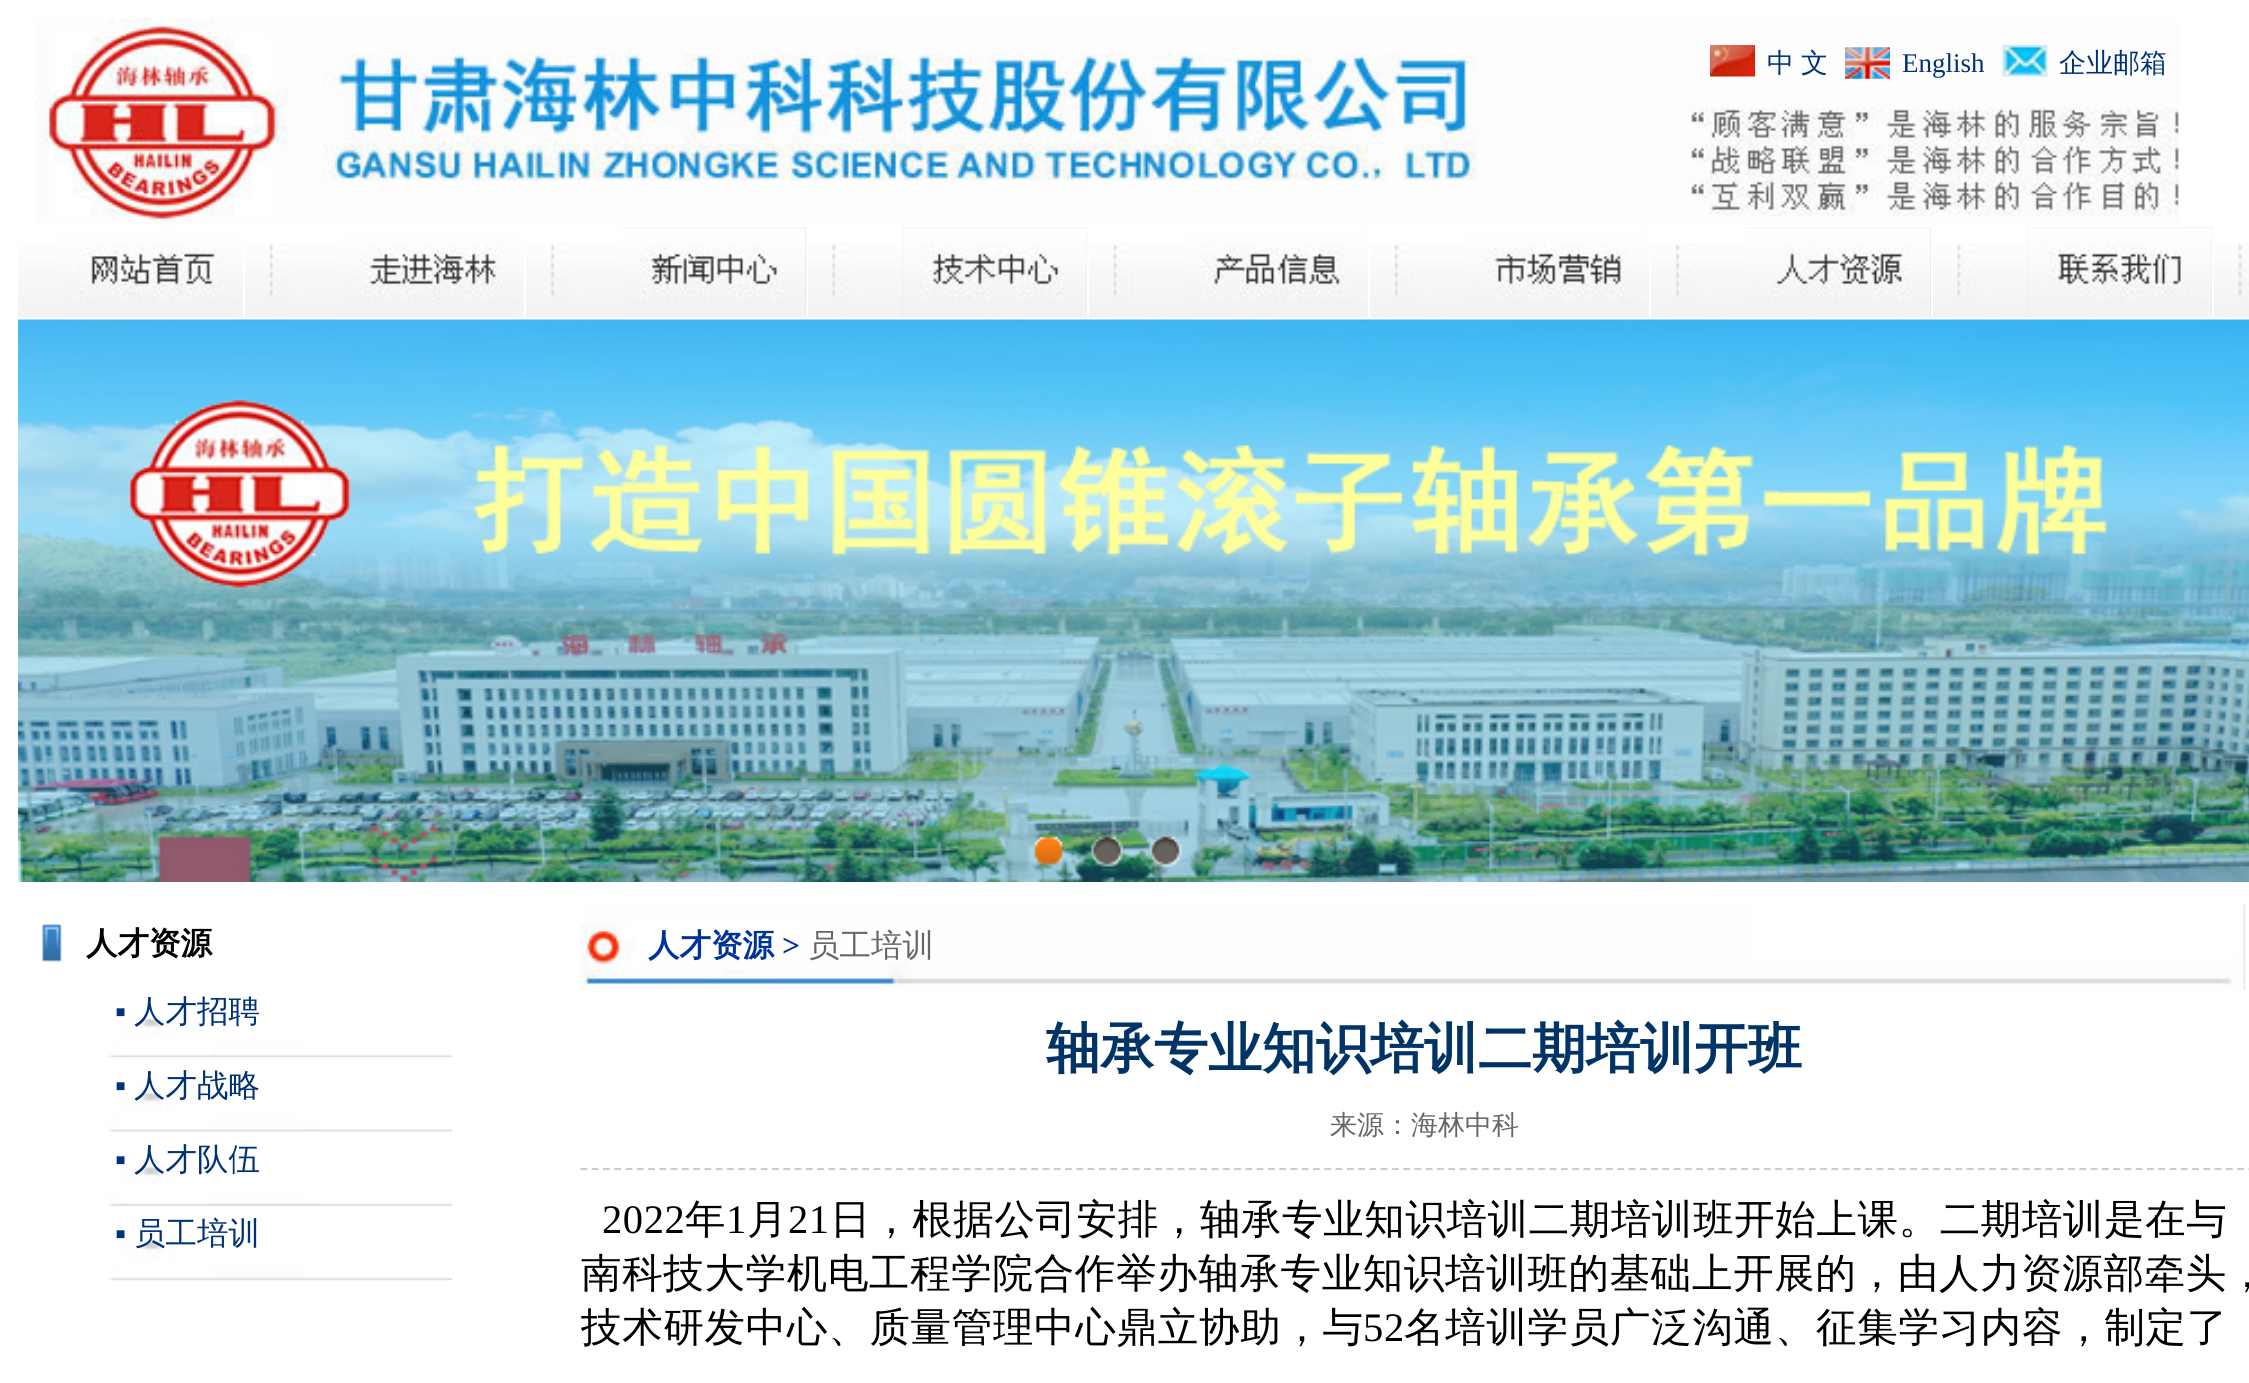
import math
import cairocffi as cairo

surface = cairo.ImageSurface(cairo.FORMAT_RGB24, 2249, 1383)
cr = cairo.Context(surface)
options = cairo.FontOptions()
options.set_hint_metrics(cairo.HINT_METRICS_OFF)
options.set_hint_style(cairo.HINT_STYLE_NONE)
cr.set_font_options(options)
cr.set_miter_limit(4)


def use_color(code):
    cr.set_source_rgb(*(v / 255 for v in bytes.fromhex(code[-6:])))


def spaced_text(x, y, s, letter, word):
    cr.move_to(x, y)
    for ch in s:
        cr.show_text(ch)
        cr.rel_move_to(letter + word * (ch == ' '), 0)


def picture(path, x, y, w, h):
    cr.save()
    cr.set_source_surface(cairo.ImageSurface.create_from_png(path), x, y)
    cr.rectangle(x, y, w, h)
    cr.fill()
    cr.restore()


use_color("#ffffff")
cr.paint()
picture("img1.png", 35, 18, 2144, 207)
picture("img2.png", 1710, 45, 45, 32)
cr.select_font_face("WenQuanYi Zen Hei Medium")
cr.set_font_size(27)
use_color("#003278")
spaced_text(1767, 72, "中 文", 0, -1)
picture("img3.png", 1845, 47, 45, 32)
cr.select_font_face("Liberation Serif")
cr.move_to(1902, 72)
cr.show_text("English")
picture("img4.png", 2002, 45, 46, 32)
cr.select_font_face("WenQuanYi Zen Hei Medium")
cr.move_to(2059, 72)
cr.show_text("企业邮箱")
picture("img5.png", 18, 243, 282, 75)
use_color("#ffffff")
cr.rectangle(243, 249, 2, 68)
cr.fill()
picture("img6.png", 59, 227, 184, 90)
picture("img7.png", 299, 243, 282, 75)
cr.rectangle(524, 249, 2, 68)
cr.fill()
picture("img8.png", 340, 227, 184, 90)
picture("img9.png", 580, 243, 282, 75)
cr.set_source_rgba(0.773, 0.859, 0.949, 0.9)
cr.rectangle(621, 227, 185, 90)
cr.fill()
use_color("#ffffff")
cr.rectangle(806, 249, 2, 68)
cr.fill()
picture("img10.png", 621, 227, 185, 90)
picture("img11.png", 862, 243, 281, 75)
cr.set_source_rgba(0.773, 0.859, 0.949, 0.9)
cr.rectangle(902, 227, 185, 90)
cr.fill()
use_color("#ffffff")
cr.rectangle(1087, 249, 2, 68)
cr.fill()
picture("img12.png", 902, 227, 185, 90)
picture("img13.png", 1143, 243, 282, 75)
cr.rectangle(1368, 249, 2, 68)
cr.fill()
picture("img14.png", 1184, 227, 184, 90)
picture("img7.png", 1424, 243, 282, 75)
cr.rectangle(1649, 249, 2, 68)
cr.fill()
picture("img15.png", 1465, 227, 184, 90)
picture("img16.png", 1705, 243, 282, 75)
cr.set_source_rgba(0.773, 0.859, 0.949, 0.9)
cr.rectangle(1746, 227, 185, 90)
cr.fill()
use_color("#ffffff")
cr.rectangle(1931, 249, 2, 68)
cr.fill()
picture("img17.png", 1746, 227, 185, 90)
picture("img18.png", 1987, 243, 262, 75)
cr.set_source_rgba(0.773, 0.859, 0.949, 0.9)
cr.rectangle(2027, 227, 185, 90)
cr.fill()
use_color("#ffffff")
cr.rectangle(2212, 249, 2, 68)
cr.fill()
picture("img19.png", 2027, 227, 185, 90)
picture("img20.png", 18, 319, 2231, 563)
picture("img21.png", 1034, 836, 29, 31)
picture("img22.png", 1090, 836, 34, 31)
picture("img23.png", 1149, 836, 33, 31)
picture("img24.png", 42, 924, 20, 38)
cr.select_font_face("WenQuanYi Zen Hei", cairo.FONT_SLANT_NORMAL, cairo.FONT_WEIGHT_BOLD)
cr.set_font_size(31.5)
use_color("#000000")
cr.move_to(86, 954)
cr.show_text("人才资源")
picture("img25.png", 108, 1018, 345, 40)
cr.select_font_face("Liberation Serif")
use_color("#003278")
cr.move_to(115, 1022)
cr.show_text("▪")
cr.select_font_face("WenQuanYi Zen Hei Medium")
cr.move_to(134, 1022)
cr.show_text("人才招聘")
picture("img26.png", 108, 1057, 345, 75)
cr.select_font_face("Liberation Serif")
cr.move_to(115, 1096)
cr.show_text("▪")
cr.select_font_face("WenQuanYi Zen Hei Medium")
cr.move_to(134, 1096)
cr.show_text("人才战略")
picture("img27.png", 108, 1131, 345, 75)
cr.select_font_face("Liberation Serif")
cr.move_to(115, 1170)
cr.show_text("▪")
cr.select_font_face("WenQuanYi Zen Hei Medium")
cr.move_to(134, 1170)
cr.show_text("人才队伍")
picture("img28.png", 108, 1241, 345, 40)
cr.select_font_face("Liberation Serif")
cr.move_to(115, 1244)
cr.show_text("▪")
cr.select_font_face("WenQuanYi Zen Hei Medium")
cr.move_to(134, 1244)
cr.show_text("员工培训")
picture("img29.png", 580, 904, 1666, 86)
cr.select_font_face("WenQuanYi Zen Hei", cairo.FONT_SLANT_NORMAL, cairo.FONT_WEIGHT_BOLD)
use_color("#003399")
cr.move_to(648, 956)
cr.show_text("人才资源")
cr.select_font_face("Liberation Serif", cairo.FONT_SLANT_NORMAL, cairo.FONT_WEIGHT_BOLD)
cr.move_to(782, 956)
cr.show_text(">")
cr.select_font_face("WenQuanYi Zen Hei Medium")
use_color("#666666")
cr.move_to(808, 956)
cr.show_text("员工培训")
cr.select_font_face("WenQuanYi Zen Hei", cairo.FONT_SLANT_NORMAL, cairo.FONT_WEIGHT_BOLD)
cr.set_font_size(54)
use_color("#003366")
cr.move_to(1046, 1067)
cr.show_text("轴承专业知识培训二期培训开班")
cr.select_font_face("WenQuanYi Zen Hei Medium")
cr.set_font_size(27)
use_color("#666666")
cr.move_to(1330, 1134)
cr.show_text("来源：海林中科")
cr.new_path()
cr.move_to(580.5, 1169)
cr.line_to(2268, 1169)
use_color("#cccccc")
cr.set_line_width(2.2)
cr.set_dash([6.75, 4.52])
cr.stroke()
cr.select_font_face("Liberation Serif")
cr.set_font_size(40.5)
use_color("#000000")
spaced_text(602, 1233, "2022", 0.6, 0)
cr.select_font_face("WenQuanYi Zen Hei Medium")
spaced_text(685, 1233, "年", 0.6, 0)
cr.select_font_face("Liberation Serif")
spaced_text(726, 1233, "1", 0.6, 0)
cr.select_font_face("WenQuanYi Zen Hei Medium")
spaced_text(747, 1233, "月", 0.6, 0)
cr.select_font_face("Liberation Serif")
spaced_text(788, 1233, "21", 0.6, 0)
cr.select_font_face("WenQuanYi Zen Hei Medium")
spaced_text(830, 1233, "日，根据公司安排，轴承专业知识培训二期培训班开始上课。二期培训是在与", 0.6, 0)
spaced_text(581, 1287, "南科技大学机电工程学院合作举办轴承专业知识培训班的基础上开展的，由人力资源部牵头，", 0.65, 0)
spaced_text(581, 1341, "技术研发中心、质量管理中心鼎立协助，与", 0.7, 0)
cr.select_font_face("Liberation Serif")
spaced_text(1363, 1341, "52", 0.7, 0)
cr.select_font_face("WenQuanYi Zen Hei Medium")
spaced_text(1404, 1341, "名培训学员广泛沟通、征集学习内容，制定了", 0.7, 0)
surface.write_to_png("result.png")
